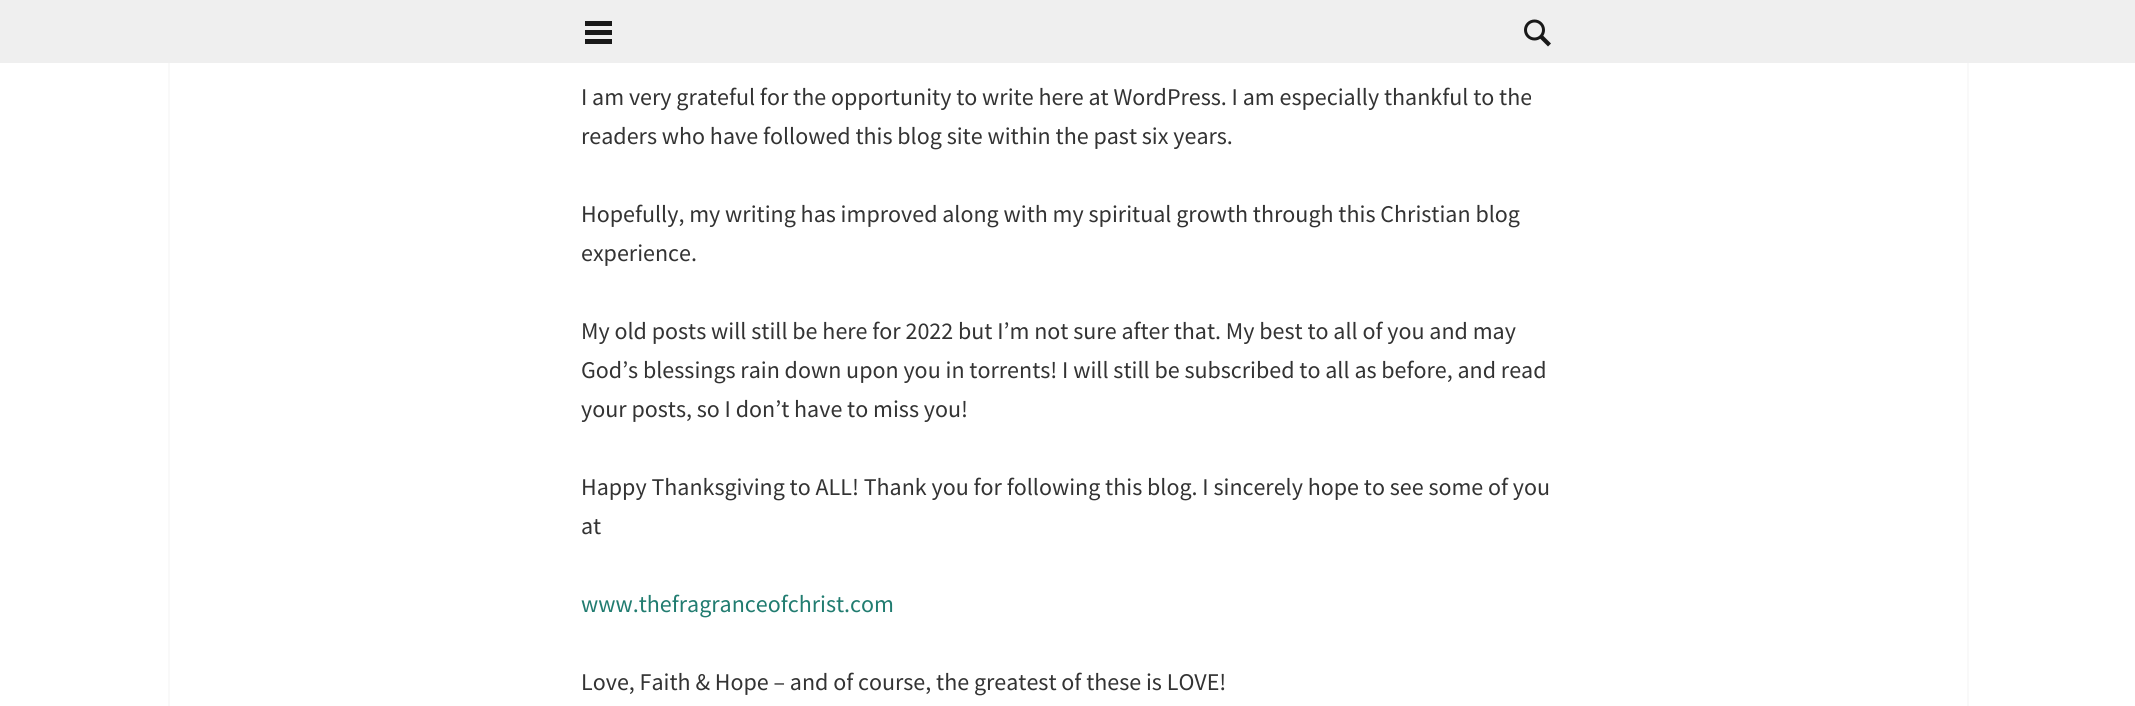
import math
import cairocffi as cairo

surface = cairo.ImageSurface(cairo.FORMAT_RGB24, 2135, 706)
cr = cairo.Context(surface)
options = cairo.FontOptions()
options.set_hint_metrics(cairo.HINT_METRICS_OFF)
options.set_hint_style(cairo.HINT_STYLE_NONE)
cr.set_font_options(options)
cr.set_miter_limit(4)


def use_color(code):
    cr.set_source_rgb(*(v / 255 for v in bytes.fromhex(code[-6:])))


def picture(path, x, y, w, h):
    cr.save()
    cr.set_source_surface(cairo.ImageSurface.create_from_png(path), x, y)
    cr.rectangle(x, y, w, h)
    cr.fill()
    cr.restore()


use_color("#ffffff")
cr.paint()
use_color("#efefef")
cr.rectangle(0, 0, 2135, 63)
cr.fill()
use_color("#191919")
cr.rectangle(585, 21, 27, 5)
cr.fill()
cr.rectangle(585, 30, 27, 5)
cr.fill()
cr.rectangle(585, 39, 27, 5)
cr.fill()
picture("img1.png", 1524, 19, 27, 28)
use_color("#f9f9f9")
cr.rectangle(1967, 63, 2, 643)
cr.fill()
cr.rectangle(168, 63, 2, 643)
cr.fill()
cr.select_font_face("Source Sans Pro")
cr.set_font_size(24)
use_color("#333333")
cr.move_to(581, 105)
cr.show_text("I am very grateful for the opportunity to write here at WordPress. I am especially thankful to the")
cr.move_to(581, 144)
cr.show_text("readers who have followed this blog site within the past six years.")
cr.move_to(581, 222)
cr.show_text("Hopefully, my writing has improved along with my spiritual growth through this Christian blog")
cr.move_to(581, 261)
cr.show_text("experience.")
cr.move_to(581, 339)
cr.show_text("My old posts will still be here for 2022 but I’m not sure after that. My best to all of you and may")
cr.move_to(581, 378)
cr.show_text("God’s blessings rain down upon you in torrents! I will still be subscribed to all as before, and read")
cr.move_to(581, 417)
cr.show_text("your posts, so I don’t have to miss you!")
cr.move_to(581, 495)
cr.show_text("Happy Thanksgiving to ALL! Thank you for following this blog. I sincerely hope to see some of you")
cr.move_to(581, 534)
cr.show_text("at")
use_color("#217c70")
cr.move_to(581, 612)
cr.show_text("www.thefragranceofchrist.com")
use_color("#333333")
cr.move_to(581, 690)
cr.show_text("Love, Faith & Hope – and of course, the greatest of these is LOVE!")
surface.write_to_png("result.png")
